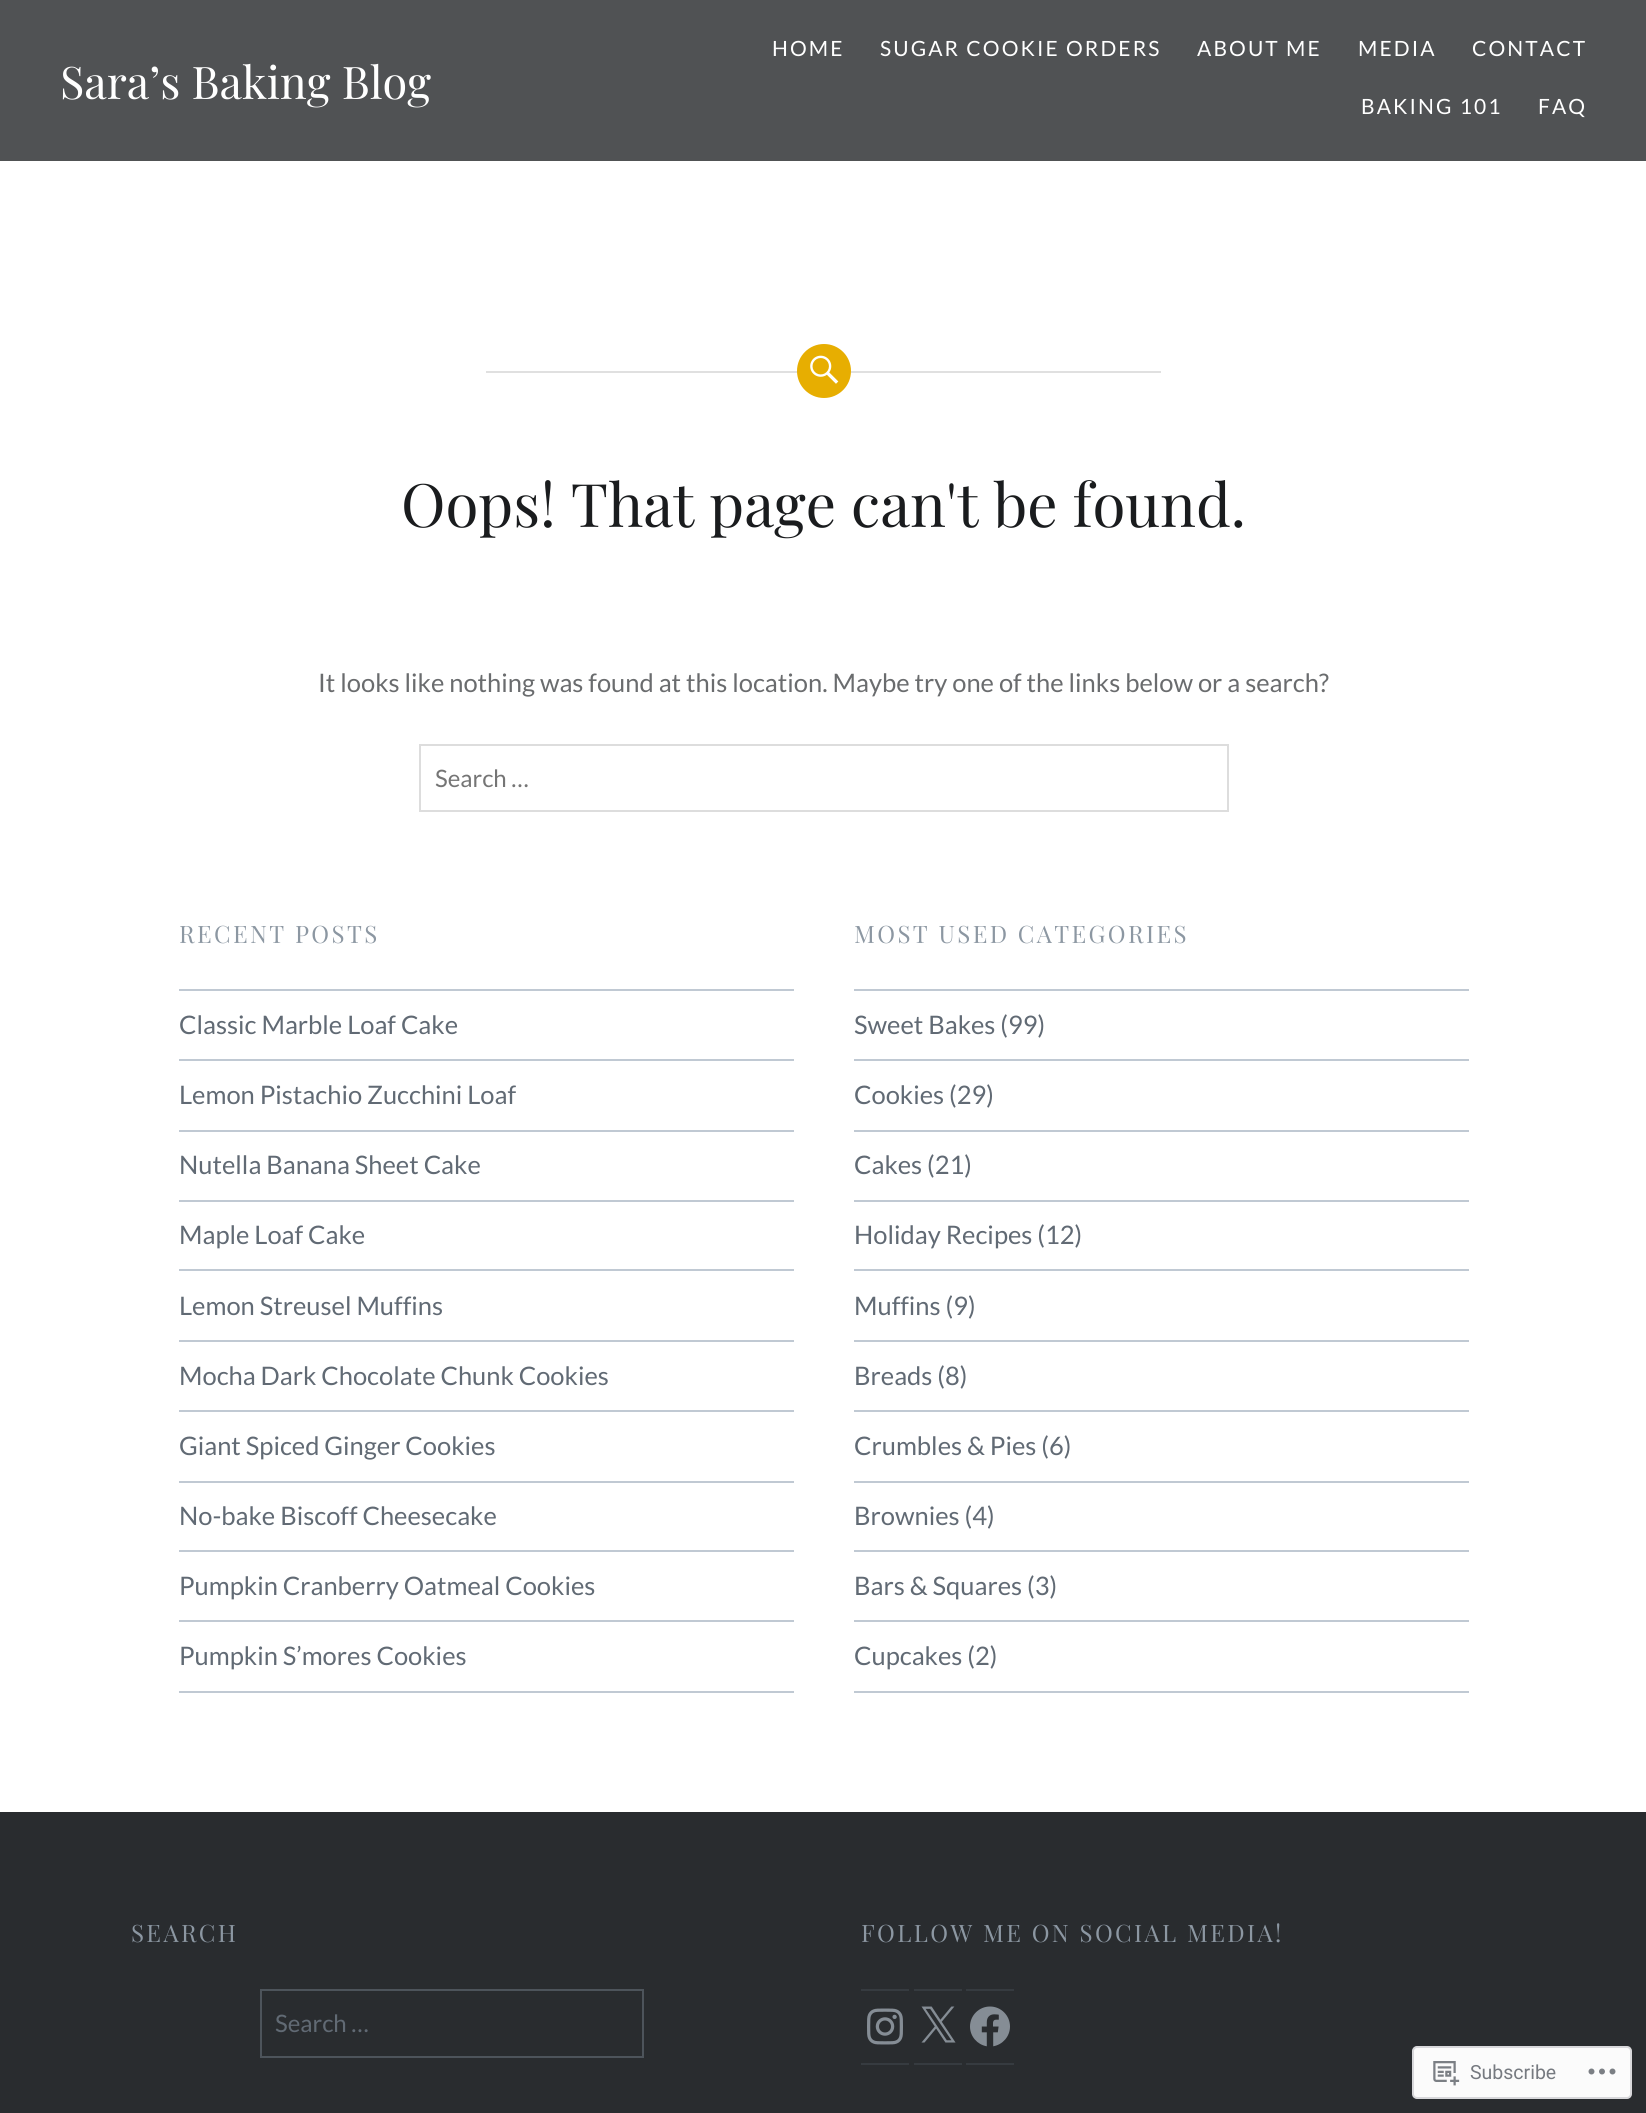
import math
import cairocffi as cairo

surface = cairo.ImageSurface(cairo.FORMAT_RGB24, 1646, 2113)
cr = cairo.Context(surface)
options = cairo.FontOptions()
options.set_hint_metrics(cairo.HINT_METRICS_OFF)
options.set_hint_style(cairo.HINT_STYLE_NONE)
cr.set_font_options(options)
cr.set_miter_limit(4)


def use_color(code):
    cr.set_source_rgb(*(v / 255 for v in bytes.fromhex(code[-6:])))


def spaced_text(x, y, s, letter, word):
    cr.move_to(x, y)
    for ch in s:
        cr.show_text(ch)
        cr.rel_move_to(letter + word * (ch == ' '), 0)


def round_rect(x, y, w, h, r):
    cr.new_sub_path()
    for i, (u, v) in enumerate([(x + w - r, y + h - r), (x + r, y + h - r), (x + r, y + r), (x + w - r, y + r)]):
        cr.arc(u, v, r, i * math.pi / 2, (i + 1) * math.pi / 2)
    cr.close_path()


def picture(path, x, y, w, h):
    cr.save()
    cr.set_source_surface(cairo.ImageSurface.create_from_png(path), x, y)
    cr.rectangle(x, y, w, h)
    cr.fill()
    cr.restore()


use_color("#ffffff")
cr.paint()
use_color("#505254")
cr.rectangle(0, 0, 1646, 161)
cr.fill()
cr.select_font_face("Playfair Display")
cr.set_font_size(45)
use_color("#ffffff")
cr.move_to(60, 99)
cr.show_text("Sara’s Baking Blog")
cr.select_font_face("Lato")
cr.set_font_size(21)
spaced_text(772, 56, "HOME", 2.1, 0)
spaced_text(880, 56, "SUGAR COOKIE ORDERS", 2.1, 0)
spaced_text(1197, 56, "ABOUT ME", 2.1, 0)
spaced_text(1358, 56, "MEDIA", 2.1, 0)
spaced_text(1472, 56, "CONTACT", 2.1, 0)
spaced_text(1361, 114, "BAKING 101", 2.1, 0)
spaced_text(1538, 114, "FAQ", 2.1, 0)
use_color("#e0e0e0")
cr.rectangle(486, 371, 675, 2)
cr.fill()
use_color("#e7ae01")
cr.arc(824, 371, 27, 0, 2 * math.pi)
cr.fill()
picture("img1.png", 810, 355, 29, 29)
cr.select_font_face("Playfair Display")
cr.set_font_size(60)
use_color("#1a1c1e")
cr.move_to(401, 527)
cr.show_text("Oops! That page can't be found.")
cr.select_font_face("Lato")
cr.set_font_size(25.5)
use_color("#6a6c6e")
cr.move_to(318, 692)
cr.show_text("It looks like nothing was found at this location. Maybe try one of the links below or a search?")
cr.rectangle(420, 745, 808, 66)
use_color("#dddddd")
cr.stroke()
cr.set_font_size(24)
use_color("#757575")
cr.move_to(435, 787)
cr.show_text("Search …")
cr.select_font_face("Playfair Display")
use_color("#8c97a2")
spaced_text(179, 943, "RECENT POSTS", 2.4, 0)
use_color("#c0c9d3")
cr.rectangle(179, 989, 615, 2)
cr.fill()
cr.rectangle(179, 1059, 615, 2)
cr.fill()
cr.select_font_face("Lato")
cr.set_font_size(25.5)
use_color("#616a74")
cr.move_to(179, 1034)
cr.show_text("Classic Marble Loaf Cake")
use_color("#c0c9d3")
cr.rectangle(179, 1130, 615, 2)
cr.fill()
use_color("#616a74")
cr.move_to(179, 1104)
cr.show_text("Lemon Pistachio Zucchini Loaf")
use_color("#c0c9d3")
cr.rectangle(179, 1200, 615, 2)
cr.fill()
use_color("#616a74")
cr.move_to(179, 1174)
cr.show_text("Nutella Banana Sheet Cake")
use_color("#c0c9d3")
cr.rectangle(179, 1269, 615, 2)
cr.fill()
use_color("#616a74")
cr.move_to(179, 1244)
cr.show_text("Maple Loaf Cake")
use_color("#c0c9d3")
cr.rectangle(179, 1340, 615, 2)
cr.fill()
use_color("#616a74")
cr.move_to(179, 1315)
cr.show_text("Lemon Streusel Muffins")
use_color("#c0c9d3")
cr.rectangle(179, 1410, 615, 2)
cr.fill()
use_color("#616a74")
cr.move_to(179, 1385)
cr.show_text("Mocha Dark Chocolate Chunk Cookies")
use_color("#c0c9d3")
cr.rectangle(179, 1481, 615, 2)
cr.fill()
use_color("#616a74")
cr.move_to(179, 1455)
cr.show_text("Giant Spiced Ginger Cookies")
use_color("#c0c9d3")
cr.rectangle(179, 1550, 615, 2)
cr.fill()
use_color("#616a74")
cr.move_to(179, 1525)
cr.show_text("No-bake Biscoff Cheesecake")
use_color("#c0c9d3")
cr.rectangle(179, 1620, 615, 2)
cr.fill()
use_color("#616a74")
cr.move_to(179, 1595)
cr.show_text("Pumpkin Cranberry Oatmeal Cookies")
use_color("#c0c9d3")
cr.rectangle(179, 1691, 615, 2)
cr.fill()
use_color("#616a74")
cr.move_to(179, 1665)
cr.show_text("Pumpkin S’mores Cookies")
cr.select_font_face("Playfair Display")
cr.set_font_size(24)
use_color("#8c97a2")
spaced_text(854, 943, "MOST USED CATEGORIES", 2.4, 0)
use_color("#c0c9d3")
cr.rectangle(854, 989, 615, 2)
cr.fill()
cr.rectangle(854, 1059, 615, 2)
cr.fill()
cr.select_font_face("Lato")
cr.set_font_size(25.5)
use_color("#616a74")
cr.move_to(854, 1034)
cr.show_text("Sweet Bakes (99)")
use_color("#c0c9d3")
cr.rectangle(854, 1130, 615, 2)
cr.fill()
use_color("#616a74")
cr.move_to(854, 1104)
cr.show_text("Cookies (29)")
use_color("#c0c9d3")
cr.rectangle(854, 1200, 615, 2)
cr.fill()
use_color("#616a74")
cr.move_to(854, 1174)
cr.show_text("Cakes (21)")
use_color("#c0c9d3")
cr.rectangle(854, 1269, 615, 2)
cr.fill()
use_color("#616a74")
cr.move_to(854, 1244)
cr.show_text("Holiday Recipes (12)")
use_color("#c0c9d3")
cr.rectangle(854, 1340, 615, 2)
cr.fill()
use_color("#616a74")
cr.move_to(854, 1315)
cr.show_text("Muffins (9)")
use_color("#c0c9d3")
cr.rectangle(854, 1410, 615, 2)
cr.fill()
use_color("#616a74")
cr.move_to(854, 1385)
cr.show_text("Breads (8)")
use_color("#c0c9d3")
cr.rectangle(854, 1481, 615, 2)
cr.fill()
use_color("#616a74")
cr.move_to(854, 1455)
cr.show_text("Crumbles & Pies (6)")
use_color("#c0c9d3")
cr.rectangle(854, 1550, 615, 2)
cr.fill()
use_color("#616a74")
cr.move_to(854, 1525)
cr.show_text("Brownies (4)")
use_color("#c0c9d3")
cr.rectangle(854, 1620, 615, 2)
cr.fill()
use_color("#616a74")
cr.move_to(854, 1595)
cr.show_text("Bars & Squares (3)")
use_color("#c0c9d3")
cr.rectangle(854, 1691, 615, 2)
cr.fill()
use_color("#616a74")
cr.move_to(854, 1665)
cr.show_text("Cupcakes (2)")
use_color("#292c2f")
cr.rectangle(0, 1812, 1646, 301)
cr.fill()
cr.select_font_face("Playfair Display")
cr.set_font_size(24)
use_color("#8c97a2")
spaced_text(131, 1942, "SEARCH", 2.4, 0)
cr.rectangle(261, 1990, 382, 67)
use_color("#4d545b")
cr.stroke()
cr.select_font_face("Lato")
use_color("#616a74")
cr.move_to(275, 2032)
cr.show_text("Search …")
cr.select_font_face("Playfair Display")
use_color("#8c97a2")
spaced_text(861, 1942, "FOLLOW ME ON SOCIAL MEDIA!", 2.4, 0)
use_color("#363b40")
cr.rectangle(861, 1989, 48, 2)
cr.fill()
cr.rectangle(861, 2063, 48, 2)
cr.fill()
picture("img2.png", 867, 2008, 36, 37)
cr.rectangle(914, 1989, 48, 2)
cr.fill()
cr.rectangle(914, 2063, 48, 2)
cr.fill()
picture("img3.png", 921, 2006, 35, 37)
cr.rectangle(966, 1989, 48, 2)
cr.fill()
cr.rectangle(966, 2063, 48, 2)
cr.fill()
picture("img4.png", 970, 2006, 40, 41)
use_color("#fbfbfb")
round_rect(1413, 2047, 218, 51, 4)
cr.fill_preserve()
use_color("#d8d8db")
cr.stroke()
picture("img5.png", 1433, 2061, 27, 25)
cr.select_font_face("Roboto")
cr.set_font_size(19.5)
use_color("#767a80")
cr.move_to(1470, 2079)
cr.show_text("Subscribe")
picture("img6.png", 1588, 2068, 28, 7)
surface.write_to_png("result.png")
